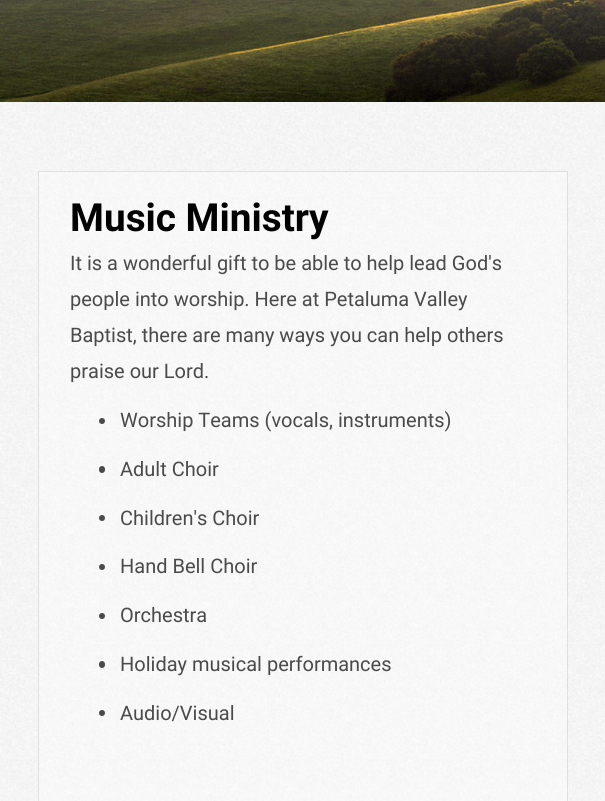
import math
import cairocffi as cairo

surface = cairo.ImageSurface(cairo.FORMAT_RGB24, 605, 801)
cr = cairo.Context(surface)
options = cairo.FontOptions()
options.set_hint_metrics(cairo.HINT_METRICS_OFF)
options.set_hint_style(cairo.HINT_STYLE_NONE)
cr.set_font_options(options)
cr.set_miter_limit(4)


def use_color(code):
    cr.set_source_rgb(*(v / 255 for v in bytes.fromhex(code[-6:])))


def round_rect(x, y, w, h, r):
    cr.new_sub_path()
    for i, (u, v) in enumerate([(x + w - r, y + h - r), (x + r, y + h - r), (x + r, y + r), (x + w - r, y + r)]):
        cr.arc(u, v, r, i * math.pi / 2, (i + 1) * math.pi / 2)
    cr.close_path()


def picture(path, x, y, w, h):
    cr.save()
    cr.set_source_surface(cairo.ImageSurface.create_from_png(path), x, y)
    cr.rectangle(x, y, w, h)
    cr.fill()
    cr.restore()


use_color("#ffffff")
cr.paint()
picture("img1.png", 0, 102, 605, 699)
picture("img2.png", 0, 0, 605, 102)
cr.set_source_rgba(1, 1, 1, 0.3)
cr.rectangle(38, 171, 530, 630)
cr.fill()
cr.rectangle(38.5, 171.5, 529, 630)
cr.set_source_rgba(0, 0, 0, 0.1)
cr.set_line_width(1)
cr.stroke()
cr.select_font_face("Roboto", cairo.FONT_SLANT_NORMAL, cairo.FONT_WEIGHT_BOLD)
cr.set_font_size(38.75)
use_color("#000000")
cr.move_to(70, 231)
cr.show_text("Music Ministry")
cr.select_font_face("Roboto")
cr.set_font_size(20)
use_color("#4a4a4a")
cr.move_to(70, 270)
cr.show_text("It is a wonderful gift to be able to help lead God's")
cr.move_to(70, 306)
cr.show_text("people into worship. Here at Petaluma Valley")
cr.move_to(70, 342)
cr.show_text("Baptist, there are many ways you can help others")
cr.move_to(70, 378)
cr.show_text("praise our Lord.")
cr.set_source_rgba(0, 0, 0, 0.7)
cr.new_path()
cr.arc(102, 421, 3, 0, 2 * math.pi)
cr.fill()
use_color("#4a4a4a")
cr.move_to(120, 427)
cr.show_text("Worship Teams (vocals, instruments)")
cr.set_source_rgba(0, 0, 0, 0.7)
round_rect(99, 466, 6, 7, 3)
cr.fill()
use_color("#4a4a4a")
cr.move_to(120, 476)
cr.show_text("Adult Choir")
cr.set_source_rgba(0, 0, 0, 0.7)
cr.new_path()
cr.arc(102, 518, 3, 0, 2 * math.pi)
cr.fill()
use_color("#4a4a4a")
cr.move_to(120, 525)
cr.show_text("Children's Choir")
cr.set_source_rgba(0, 0, 0, 0.7)
cr.new_path()
cr.arc(102, 567, 3, 0, 2 * math.pi)
cr.fill()
use_color("#4a4a4a")
cr.move_to(120, 573)
cr.show_text("Hand Bell Choir")
cr.set_source_rgba(0, 0, 0, 0.7)
cr.new_path()
cr.arc(102, 616, 3, 0, 2 * math.pi)
cr.fill()
use_color("#4a4a4a")
cr.move_to(120, 622)
cr.show_text("Orchestra")
cr.set_source_rgba(0, 0, 0, 0.7)
round_rect(99, 661, 6, 7, 3)
cr.fill()
use_color("#4a4a4a")
cr.move_to(120, 671)
cr.show_text("Holiday musical performances")
cr.set_source_rgba(0, 0, 0, 0.7)
cr.new_path()
cr.arc(102, 713, 3, 0, 2 * math.pi)
cr.fill()
use_color("#4a4a4a")
cr.move_to(120, 720)
cr.show_text("Audio/Visual")
surface.write_to_png("result.png")
